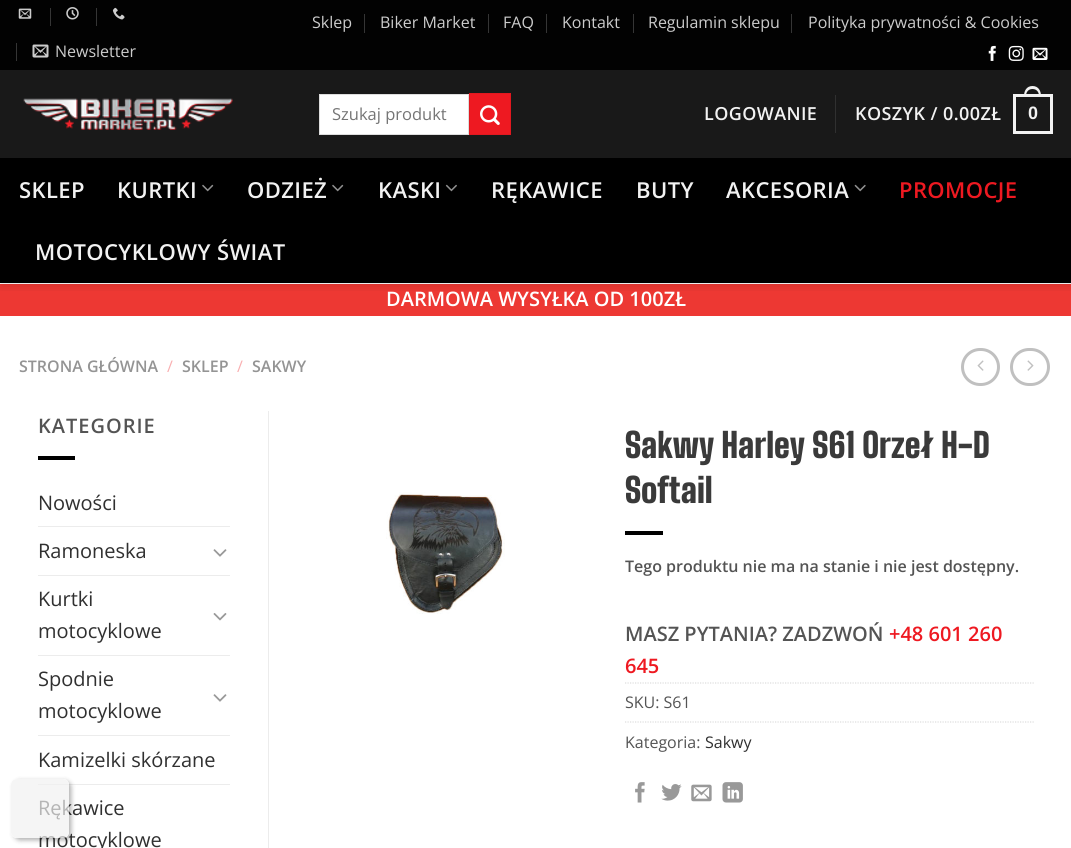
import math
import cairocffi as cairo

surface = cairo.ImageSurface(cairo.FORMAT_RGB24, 1071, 848)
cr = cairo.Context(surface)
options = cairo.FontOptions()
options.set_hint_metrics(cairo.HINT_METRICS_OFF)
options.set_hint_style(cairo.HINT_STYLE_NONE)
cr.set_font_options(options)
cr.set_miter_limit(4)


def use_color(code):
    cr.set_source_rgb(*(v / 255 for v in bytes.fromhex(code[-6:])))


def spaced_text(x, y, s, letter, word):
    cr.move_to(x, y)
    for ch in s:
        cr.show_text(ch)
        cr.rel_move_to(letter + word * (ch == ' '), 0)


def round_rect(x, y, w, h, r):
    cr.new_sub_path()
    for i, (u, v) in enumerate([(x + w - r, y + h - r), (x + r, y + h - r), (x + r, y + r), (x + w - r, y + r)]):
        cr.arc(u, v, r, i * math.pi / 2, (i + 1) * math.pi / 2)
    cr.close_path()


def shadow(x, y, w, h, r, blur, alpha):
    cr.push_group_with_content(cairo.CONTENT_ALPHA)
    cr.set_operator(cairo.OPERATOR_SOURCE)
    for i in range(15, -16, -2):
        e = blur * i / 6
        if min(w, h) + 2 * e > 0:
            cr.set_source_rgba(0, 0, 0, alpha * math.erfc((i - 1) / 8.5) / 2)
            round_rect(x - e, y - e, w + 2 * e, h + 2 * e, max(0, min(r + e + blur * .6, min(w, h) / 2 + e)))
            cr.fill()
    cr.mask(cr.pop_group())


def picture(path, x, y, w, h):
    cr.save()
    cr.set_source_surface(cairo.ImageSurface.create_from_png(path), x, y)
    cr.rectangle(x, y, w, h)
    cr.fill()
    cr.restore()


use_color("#ffffff")
cr.paint()
use_color("#ed3833")
cr.rectangle(0, 284, 1071, 32)
cr.fill()
cr.save()
cr.rectangle(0, 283, 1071, 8)
cr.clip()
use_color("#000000")
shadow(1, 1, 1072, 283, 0, 6, 0.15)
cr.restore()
use_color("#020202")
cr.rectangle(0, 0, 1071, 70)
cr.fill()
cr.select_font_face("Open Sans")
cr.set_font_size(16)
use_color("#cccccc")
cr.move_to(312, 28)
cr.show_text("Sklep")
use_color("#353535")
cr.rectangle(364, 14, 1, 19)
cr.fill()
use_color("#cccccc")
cr.move_to(380, 28)
cr.show_text("Biker Market")
use_color("#353535")
cr.rectangle(488, 14, 1, 19)
cr.fill()
use_color("#cccccc")
cr.move_to(503, 28)
cr.show_text("FAQ")
use_color("#353535")
cr.rectangle(546, 14, 1, 19)
cr.fill()
use_color("#cccccc")
cr.move_to(562, 28)
cr.show_text("Kontakt")
use_color("#353535")
cr.rectangle(633, 14, 1, 19)
cr.fill()
use_color("#cccccc")
cr.move_to(648, 28)
cr.show_text("Regulamin sklepu")
use_color("#353535")
cr.rectangle(791, 14, 1, 19)
cr.fill()
use_color("#cccccc")
cr.move_to(808, 28)
cr.show_text("Polityka prywatności & Cookies")
picture("img1.png", 988, 45, 8, 16)
picture("img2.png", 1008, 45, 16, 16)
picture("img3.png", 1032, 47, 16, 13)
picture("img4.png", 18, 8, 14, 11)
use_color("#353535")
cr.rectangle(50, 8, 1, 18)
cr.fill()
picture("img5.png", 66, 7, 13, 13)
cr.rectangle(96, 8, 1, 18)
cr.fill()
picture("img6.png", 112, 7, 13, 13)
cr.rectangle(16, 43, 1, 18)
cr.fill()
picture("img7.png", 32, 44, 17, 14)
use_color("#cccccc")
cr.move_to(55, 57)
cr.show_text("Newsletter")
cr.set_source_rgba(0, 0, 0, 0.9)
cr.rectangle(0, 70, 1071, 88)
cr.fill()
picture("img8.png", 23, 98, 210, 32)
use_color("#ffffff")
cr.rectangle(319.5, 94.5, 149, 40)
cr.fill_preserve()
use_color("#dddddd")
cr.set_line_width(1)
cr.stroke()
cr.set_font_size(16.5)
use_color("#757575")
cr.move_to(332, 120)
cr.show_text("Szukaj produkt")
use_color("#ee1921")
cr.rectangle(469.5, 93.5, 41, 41)
cr.fill_preserve()
use_color("#e2181f")
cr.stroke()
picture("img9.png", 480, 105, 20, 20)
cr.select_font_face("Open Sans SemiBold")
cr.set_font_size(18)
use_color("#f2f2f2")
spaced_text(704, 120, "LOGOWANIE", 0.4, 0)
use_color("#303030")
cr.rectangle(835, 95, 1, 38)
cr.fill()
use_color("#f2f2f2")
spaced_text(855, 120, "KOSZYK / 0.00ZŁ", 0.4, 0)
cr.rectangle(1014.5, 95.5, 37, 37)
cr.set_line_width(3)
cr.stroke()
cr.set_fill_rule(cairo.FILL_RULE_EVEN_ODD)
cr.new_path()
cr.move_to(1032.5, 86)
cr.curve_to(1038.5, 86, 1041, 91, 1041, 96)
cr.line_to(1024, 96)
cr.curve_to(1024, 91, 1026.5, 86, 1032.5, 86)
cr.close_path()
cr.move_to(1032.5, 89)
cr.curve_to(1037, 89, 1039, 92.5, 1039, 96)
cr.line_to(1026, 96)
cr.curve_to(1026, 92.5, 1028, 89, 1032.5, 89)
cr.close_path()
cr.fill()
cr.select_font_face("Liberation Sans", cairo.FONT_SLANT_NORMAL, cairo.FONT_WEIGHT_BOLD)
spaced_text(1028, 119, "0", 0.4, 0)
use_color("#000000")
cr.rectangle(0, 158, 1071, 125)
cr.fill()
cr.select_font_face("Open Sans SemiBold")
cr.set_font_size(22)
use_color("#f2f2f2")
spaced_text(19, 198, "SKLEP", 0.4, 0)
spaced_text(117, 198, "KURTKI", 0.4, 0)
picture("img10.png", 202, 184, 12, 8)
spaced_text(247, 198, "ODZIEŻ", 0.4, 0)
picture("img10.png", 332, 184, 12, 8)
spaced_text(378, 198, "KASKI", 0.4, 0)
picture("img11.png", 445, 184, 12, 8)
spaced_text(491, 198, "RĘKAWICE", 0.4, 0)
spaced_text(636, 198, "BUTY", 0.4, 0)
spaced_text(726, 198, "AKCESORIA", 0.4, 0)
picture("img12.png", 854, 184, 12, 8)
use_color("#ee1921")
spaced_text(899, 198, "PROMOCJE", 0.4, 0)
use_color("#f2f2f2")
spaced_text(35, 260, "MOTOCYKLOWY ŚWIAT", 0.4, 0)
cr.set_font_size(20)
use_color("#ffffff")
cr.move_to(386, 306)
cr.show_text("DARMOWA WYSYŁKA OD 100ZŁ")
cr.set_font_size(16)
use_color("#949494")
cr.move_to(19, 372)
cr.show_text("STRONA GŁÓWNA")
cr.select_font_face("Open Sans")
use_color("#f9afb1")
cr.move_to(167, 372)
cr.show_text("/")
cr.select_font_face("Open Sans SemiBold")
use_color("#949494")
cr.move_to(182, 372)
cr.show_text("SKLEP")
cr.select_font_face("Open Sans")
use_color("#f9afb1")
cr.move_to(237, 372)
cr.show_text("/")
cr.select_font_face("Open Sans SemiBold")
use_color("#949494")
cr.move_to(252, 372)
cr.show_text("SAKWY")
round_rect(962.5, 349.5, 36, 35, 17.5)
use_color("#c0c0c0")
cr.stroke()
picture("img13.png", 977, 360, 7, 11)
round_rect(1011.5, 349.5, 37, 35, 17.5)
cr.stroke()
picture("img14.png", 1027, 360, 7, 11)
cr.set_font_size(20)
use_color("#545454")
spaced_text(38, 433, "KATEGORIE", 1, 0)
use_color("#000000")
cr.rectangle(38, 456, 37, 4)
cr.fill()
cr.select_font_face("Open Sans")
use_color("#303030")
cr.move_to(38, 510)
cr.show_text("Nowości")
use_color("#ececec")
cr.rectangle(38, 526, 192, 1)
cr.fill()
use_color("#303030")
cr.move_to(38, 558)
cr.show_text("Ramoneska")
picture("img15.png", 213, 549, 14, 8)
use_color("#ececec")
cr.rectangle(38, 575, 192, 1)
cr.fill()
use_color("#303030")
cr.move_to(38, 606)
cr.show_text("Kurtki")
cr.move_to(38, 638)
cr.show_text("motocyklowe")
picture("img16.png", 213, 613, 14, 8)
use_color("#ececec")
cr.rectangle(38, 655, 192, 1)
cr.fill()
use_color("#303030")
cr.move_to(38, 686)
cr.show_text("Spodnie")
cr.move_to(38, 718)
cr.show_text("motocyklowe")
picture("img15.png", 213, 694, 14, 8)
use_color("#ececec")
cr.rectangle(38, 735, 192, 1)
cr.fill()
use_color("#303030")
cr.move_to(38, 767)
cr.show_text("Kamizelki skórzane")
use_color("#ececec")
cr.rectangle(38, 784, 192, 1)
cr.fill()
use_color("#303030")
cr.move_to(38, 815)
cr.show_text("Rękawice")
cr.move_to(38, 847)
cr.show_text("motocyklowe")
use_color("#ececec")
cr.rectangle(268, 411, 1, 437)
cr.fill()
picture("img17.png", 386, 492, 119, 122)
cr.select_font_face("Big Shoulders Display Thin")
cr.set_font_size(34)
use_color("#3a3a3a")
cr.move_to(625, 458)
cr.show_text("Sakwy Harley S61 Orzeł H-D")
cr.move_to(625, 503)
cr.show_text("Softail")
use_color("#000000")
cr.rectangle(625, 531, 38, 4)
cr.fill()
cr.select_font_face("Open Sans SemiBold")
cr.set_font_size(16)
use_color("#545454")
cr.move_to(625, 572)
cr.show_text("Tego produktu nie ma na stanie i nie jest dostępny.")
cr.set_font_size(20)
cr.move_to(625, 641)
cr.show_text("MASZ PYTANIA? ZADZWOŃ")
use_color("#ee1921")
cr.move_to(889, 641)
cr.show_text("+48 601 260")
cr.move_to(625, 673)
cr.show_text("645")
cr.new_path()
cr.move_to(625, 683)
cr.line_to(1034, 683)
use_color("#dddddd")
cr.set_line_width(1.2)
cr.set_dash([1.25, 1.25])
cr.stroke()
cr.select_font_face("Open Sans")
cr.set_font_size(16)
use_color("#545454")
cr.move_to(625, 708)
cr.show_text("SKU: S61")
cr.new_path()
cr.move_to(625, 722)
cr.line_to(1034, 722)
use_color("#dddddd")
cr.stroke()
use_color("#545454")
cr.move_to(625, 748)
cr.show_text("Kategoria:")
use_color("#303030")
cr.move_to(705, 748)
cr.show_text("Sakwy")
picture("img18.png", 635, 782, 10, 21)
picture("img19.png", 661, 784, 21, 17)
picture("img20.png", 691, 784, 21, 18)
picture("img21.png", 722, 782, 21, 21)
cr.save()
cr.new_path()
cr.move_to(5, 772)
cr.line_to(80, 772)
cr.line_to(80, 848)
cr.line_to(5, 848)
cr.close_path()
cr.move_to(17, 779)
cr.line_to(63, 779)
cr.curve_to(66.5, 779, 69, 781.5, 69, 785)
cr.line_to(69, 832)
cr.curve_to(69, 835.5, 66.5, 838, 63, 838)
cr.line_to(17, 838)
cr.curve_to(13.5, 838, 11, 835.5, 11, 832)
cr.line_to(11, 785)
cr.curve_to(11, 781.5, 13.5, 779, 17, 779)
cr.close_path()
cr.clip()
use_color("#000000")
shadow(14, 781, 57, 59, 6, 2.5, 0.33)
cr.restore()
cr.set_source_rgba(0.945, 0.945, 0.945, 0.69)
round_rect(11, 779, 58, 59, 6)
cr.fill()
surface.write_to_png("result.png")
